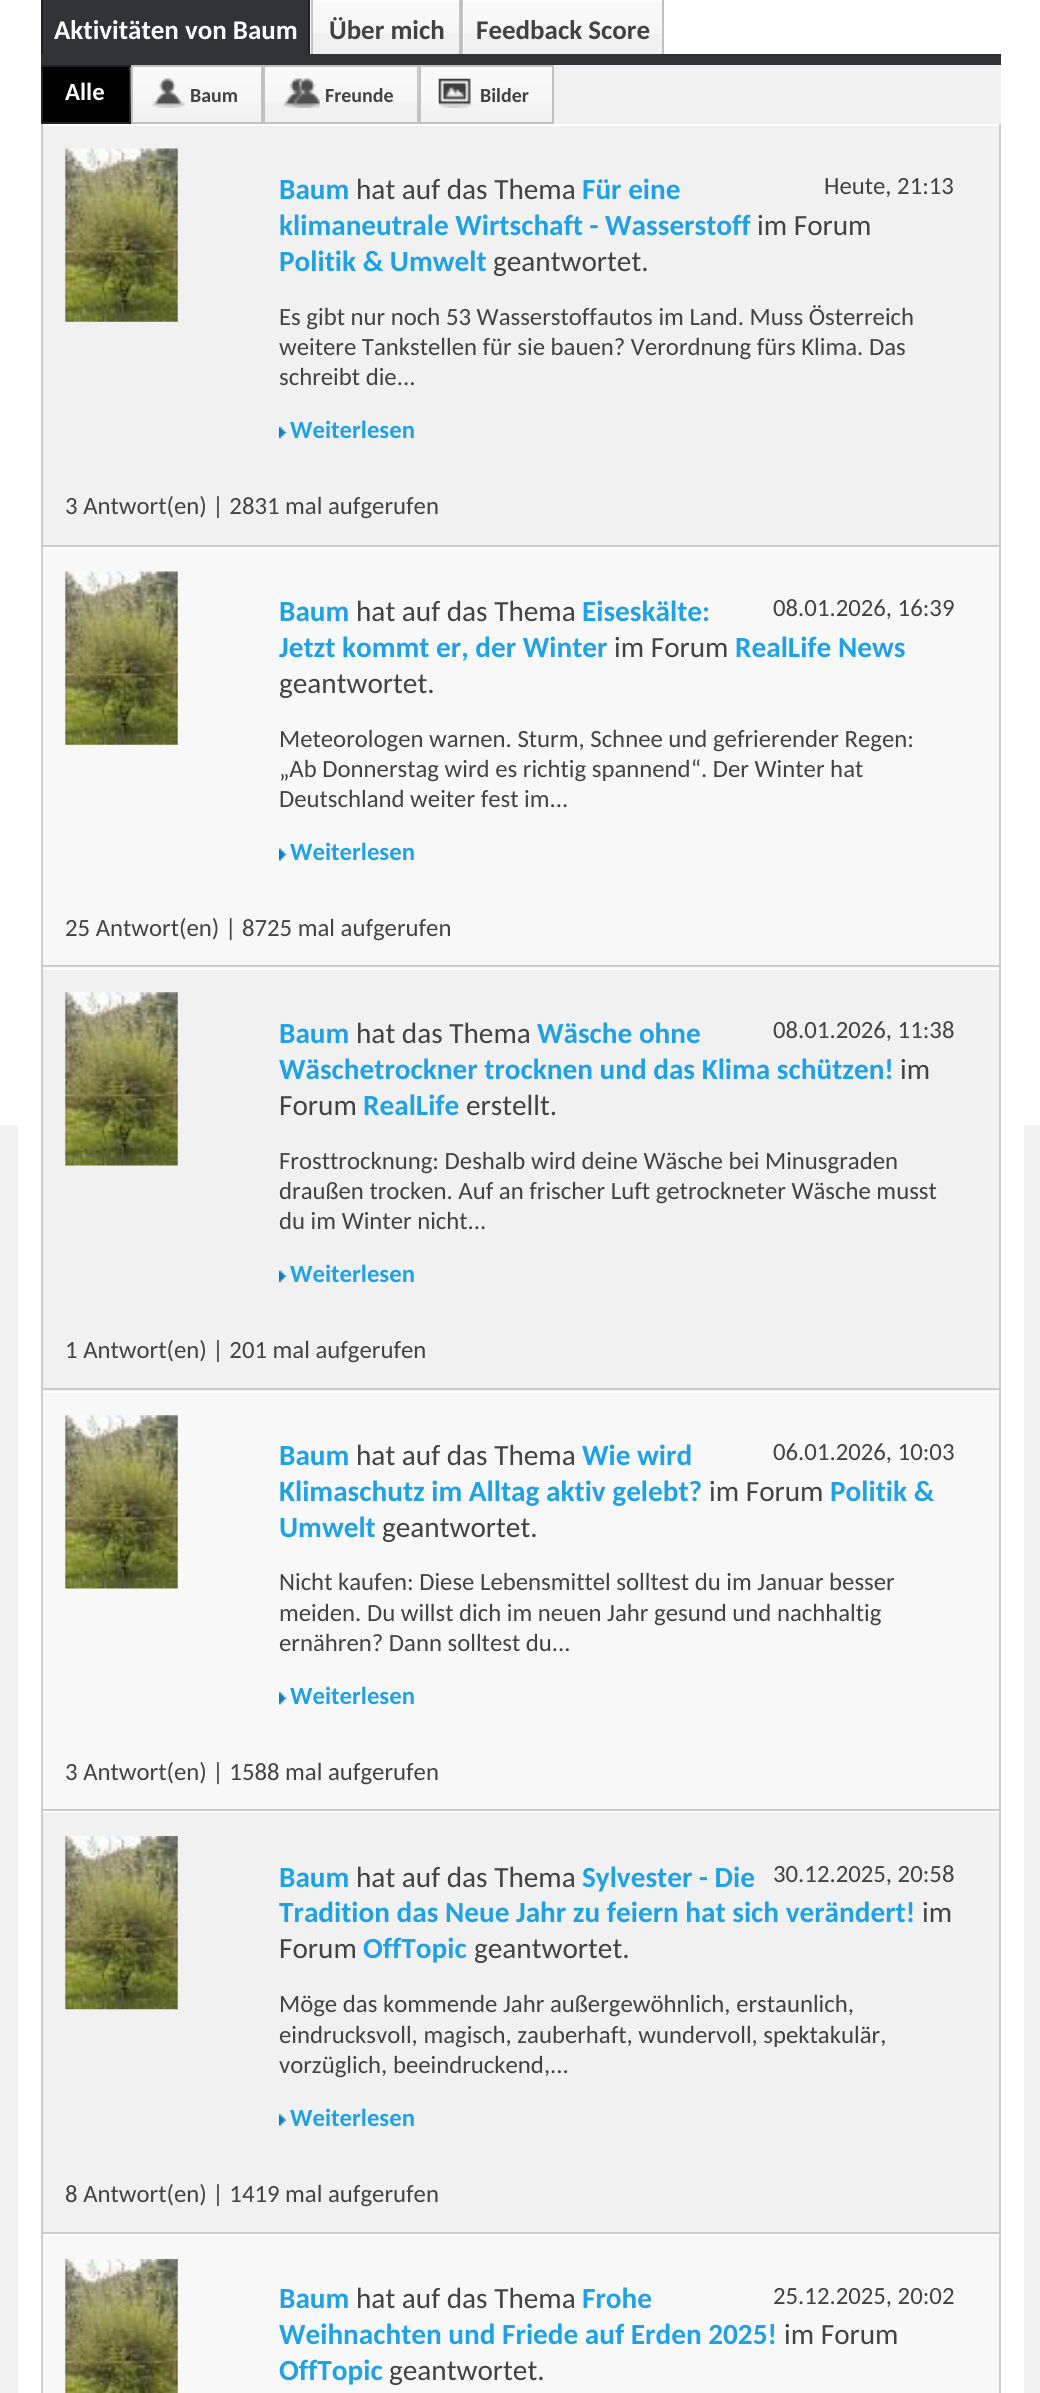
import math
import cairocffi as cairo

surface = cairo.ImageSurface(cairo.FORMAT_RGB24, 1040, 2393)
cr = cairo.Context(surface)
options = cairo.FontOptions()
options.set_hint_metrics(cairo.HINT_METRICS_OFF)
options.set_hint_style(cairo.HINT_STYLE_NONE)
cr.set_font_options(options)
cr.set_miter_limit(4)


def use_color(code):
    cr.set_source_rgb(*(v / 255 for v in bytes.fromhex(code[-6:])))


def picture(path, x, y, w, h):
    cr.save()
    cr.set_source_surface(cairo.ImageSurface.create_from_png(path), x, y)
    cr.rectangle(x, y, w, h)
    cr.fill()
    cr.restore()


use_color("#f1f1f1")
cr.paint()
use_color("#ffffff")
cr.rectangle(0, 0, 1040, 1125)
cr.fill()
cr.rectangle(18, 1125, 1006, 1268)
cr.fill()
use_color("#323239")
cr.rectangle(43, 0, 265, 54)
cr.fill()
use_color("#222222")
cr.rectangle(308, 0, 2, 54)
cr.fill()
cr.rectangle(41, 0, 2, 54)
cr.fill()
cr.select_font_face("Carlito", cairo.FONT_SLANT_NORMAL, cairo.FONT_WEIGHT_BOLD)
cr.set_font_size(27)
use_color("#ffffff")
cr.move_to(54, 39)
cr.show_text("Aktivitäten von Baum")
use_color("#f1f1f1")
cr.rectangle(313, 1, 146, 53)
cr.fill()
picture("img1.png", 313, 0, 146, 34)
use_color("#c1c1c1")
cr.rectangle(459, 0, 4, 54)
cr.fill()
cr.rectangle(311, 0, 2, 54)
cr.fill()
use_color("#424242")
cr.move_to(329, 39)
cr.show_text("Über mich")
use_color("#f1f1f1")
cr.rectangle(464, 1, 198, 53)
cr.fill()
picture("img2.png", 464, 0, 198, 34)
use_color("#c1c1c1")
cr.rectangle(662, 0, 2, 54)
cr.fill()
use_color("#424242")
cr.move_to(476, 39)
cr.show_text("Feedback Score")
use_color("#323239")
cr.rectangle(41, 54, 960, 11)
cr.fill()
use_color("#f1f1f1")
cr.rectangle(133, 65, 868, 59)
cr.fill()
use_color("#000000")
cr.rectangle(42, 66, 88, 57)
cr.fill_preserve()
use_color("#222222")
cr.stroke()
cr.set_font_size(24.75)
use_color("#ffffff")
cr.move_to(65, 100)
cr.show_text("Alle")
picture("img3.png", 130, 67, 131, 50)
cr.rectangle(132, 66, 130, 57)
use_color("#c1c1c1")
cr.stroke()
picture("img4.png", 152, 78, 33, 30)
cr.set_font_size(20)
use_color("#424242")
cr.move_to(190, 102)
cr.show_text("Baum")
picture("img5.png", 265, 67, 152, 35)
cr.rectangle(264, 66, 154, 57)
use_color("#c1c1c1")
cr.stroke()
picture("img6.png", 283, 78, 37, 30)
use_color("#424242")
cr.move_to(325, 102)
cr.show_text("Freunde")
picture("img7.png", 418, 67, 134, 44)
cr.rectangle(420, 66, 133, 57)
use_color("#c1c1c1")
cr.stroke()
picture("img8.png", 438, 78, 35, 30)
use_color("#424242")
cr.move_to(480, 102)
cr.show_text("Bilder")
use_color("#f1f1f1")
cr.rectangle(43, 126, 956, 419)
cr.fill()
use_color("#cbcccf")
cr.rectangle(999, 124, 2, 2269)
cr.fill()
cr.rectangle(41, 545, 960, 2)
cr.fill()
cr.rectangle(41, 124, 2, 423)
cr.fill()
picture("img9.png", 65, 148, 113, 174)
cr.set_font_size(29.25)
use_color("#1fa1e5")
cr.move_to(279, 199)
cr.show_text("Baum")
cr.select_font_face("Carlito")
use_color("#424242")
cr.move_to(356, 199)
cr.show_text("hat auf das Thema")
cr.select_font_face("Carlito", cairo.FONT_SLANT_NORMAL, cairo.FONT_WEIGHT_BOLD)
use_color("#1fa1e5")
cr.move_to(582, 199)
cr.show_text("Für eine")
cr.move_to(279, 235)
cr.show_text("klimaneutrale Wirtschaft - Wasserstoff")
cr.select_font_face("Carlito")
use_color("#424242")
cr.move_to(757, 235)
cr.show_text("im Forum")
cr.select_font_face("Carlito", cairo.FONT_SLANT_NORMAL, cairo.FONT_WEIGHT_BOLD)
use_color("#1fa1e5")
cr.move_to(279, 271)
cr.show_text("Politik & Umwelt")
cr.select_font_face("Carlito")
use_color("#424242")
cr.move_to(493, 271)
cr.show_text("geantwortet.")
cr.set_font_size(24.75)
cr.move_to(824, 194)
cr.show_text("Heute, 21:13")
cr.move_to(279, 325)
cr.show_text("Es gibt nur noch 53 Wasserstoffautos im Land. Muss Österreich")
cr.move_to(279, 355)
cr.show_text("weitere Tankstellen für sie bauen? Verordnung fürs Klima. Das")
cr.move_to(279, 385)
cr.show_text("schreibt die...")
picture("img10.png", 279, 426, 8, 13)
cr.select_font_face("Carlito", cairo.FONT_SLANT_NORMAL, cairo.FONT_WEIGHT_BOLD)
use_color("#1fa1e5")
cr.move_to(290, 438)
cr.show_text("Weiterlesen")
cr.select_font_face("Carlito")
use_color("#424242")
cr.move_to(65, 514)
cr.show_text("3 Antwort(en) | 2831 mal aufgerufen")
use_color("#f8f8f8")
cr.rectangle(43, 549, 956, 419)
cr.fill()
use_color("#cbcccf")
cr.rectangle(41, 965, 960, 2)
cr.fill()
cr.rectangle(41, 547, 2, 421)
cr.fill()
picture("img11.png", 65, 571, 113, 174)
use_color("#424242")
cr.move_to(773, 616)
cr.show_text("08.01.2026, 16:39")
cr.select_font_face("Carlito", cairo.FONT_SLANT_NORMAL, cairo.FONT_WEIGHT_BOLD)
cr.set_font_size(29.25)
use_color("#1fa1e5")
cr.move_to(279, 621)
cr.show_text("Baum")
cr.select_font_face("Carlito")
use_color("#424242")
cr.move_to(356, 621)
cr.show_text("hat auf das Thema")
cr.select_font_face("Carlito", cairo.FONT_SLANT_NORMAL, cairo.FONT_WEIGHT_BOLD)
use_color("#1fa1e5")
cr.move_to(582, 621)
cr.show_text("Eiseskälte:")
cr.move_to(279, 657)
cr.show_text("Jetzt kommt er, der Winter")
cr.select_font_face("Carlito")
use_color("#424242")
cr.move_to(614, 657)
cr.show_text("im Forum")
cr.select_font_face("Carlito", cairo.FONT_SLANT_NORMAL, cairo.FONT_WEIGHT_BOLD)
use_color("#1fa1e5")
cr.move_to(735, 657)
cr.show_text("RealLife News")
cr.select_font_face("Carlito")
use_color("#424242")
cr.move_to(279, 693)
cr.show_text("geantwortet.")
cr.set_font_size(24.75)
cr.move_to(279, 747)
cr.show_text("Meteorologen warnen. Sturm, Schnee und gefrierender Regen:")
cr.move_to(279, 777)
cr.show_text("„Ab Donnerstag wird es richtig spannend“. Der Winter hat")
cr.move_to(279, 807)
cr.show_text("Deutschland weiter fest im...")
picture("img12.png", 279, 848, 8, 13)
cr.select_font_face("Carlito", cairo.FONT_SLANT_NORMAL, cairo.FONT_WEIGHT_BOLD)
use_color("#1fa1e5")
cr.move_to(290, 860)
cr.show_text("Weiterlesen")
cr.select_font_face("Carlito")
use_color("#424242")
cr.move_to(65, 936)
cr.show_text("25 Antwort(en) | 8725 mal aufgerufen")
use_color("#f1f1f1")
cr.rectangle(43, 970, 956, 421)
cr.fill()
use_color("#cbcccf")
cr.rectangle(41, 1388, 960, 2)
cr.fill()
cr.rectangle(41, 968, 2, 423)
cr.fill()
picture("img13.png", 65, 992, 113, 174)
use_color("#424242")
cr.move_to(773, 1038)
cr.show_text("08.01.2026, 11:38")
cr.select_font_face("Carlito", cairo.FONT_SLANT_NORMAL, cairo.FONT_WEIGHT_BOLD)
cr.set_font_size(29.25)
use_color("#1fa1e5")
cr.move_to(279, 1043)
cr.show_text("Baum")
cr.select_font_face("Carlito")
use_color("#424242")
cr.move_to(356, 1043)
cr.show_text("hat das Thema")
cr.select_font_face("Carlito", cairo.FONT_SLANT_NORMAL, cairo.FONT_WEIGHT_BOLD)
use_color("#1fa1e5")
cr.move_to(537, 1043)
cr.show_text("Wäsche ohne")
cr.move_to(279, 1079)
cr.show_text("Wäschetrockner trocknen und das Klima schützen!")
cr.select_font_face("Carlito")
use_color("#424242")
cr.move_to(900, 1079)
cr.show_text("im")
cr.move_to(279, 1115)
cr.show_text("Forum")
cr.select_font_face("Carlito", cairo.FONT_SLANT_NORMAL, cairo.FONT_WEIGHT_BOLD)
use_color("#1fa1e5")
cr.move_to(363, 1115)
cr.show_text("RealLife")
cr.select_font_face("Carlito")
use_color("#424242")
cr.move_to(466, 1115)
cr.show_text("erstellt.")
cr.set_font_size(24.75)
cr.move_to(279, 1169)
cr.show_text("Frosttrocknung: Deshalb wird deine Wäsche bei Minusgraden")
cr.move_to(279, 1199)
cr.show_text("draußen trocken. Auf an frischer Luft getrockneter Wäsche musst")
cr.move_to(279, 1229)
cr.show_text("du im Winter nicht...")
picture("img14.png", 279, 1270, 8, 13)
cr.select_font_face("Carlito", cairo.FONT_SLANT_NORMAL, cairo.FONT_WEIGHT_BOLD)
use_color("#1fa1e5")
cr.move_to(290, 1282)
cr.show_text("Weiterlesen")
cr.select_font_face("Carlito")
use_color("#424242")
cr.move_to(65, 1358)
cr.show_text("1 Antwort(en) | 201 mal aufgerufen")
use_color("#f8f8f8")
cr.rectangle(43, 1393, 956, 416)
cr.fill()
use_color("#cbcccf")
cr.rectangle(41, 1809, 960, 2)
cr.fill()
cr.rectangle(41, 1391, 2, 420)
cr.fill()
picture("img15.png", 65, 1415, 113, 174)
use_color("#424242")
cr.move_to(773, 1460)
cr.show_text("06.01.2026, 10:03")
cr.select_font_face("Carlito", cairo.FONT_SLANT_NORMAL, cairo.FONT_WEIGHT_BOLD)
cr.set_font_size(29.25)
use_color("#1fa1e5")
cr.move_to(279, 1465)
cr.show_text("Baum")
cr.select_font_face("Carlito")
use_color("#424242")
cr.move_to(356, 1465)
cr.show_text("hat auf das Thema")
cr.select_font_face("Carlito", cairo.FONT_SLANT_NORMAL, cairo.FONT_WEIGHT_BOLD)
use_color("#1fa1e5")
cr.move_to(582, 1465)
cr.show_text("Wie wird")
cr.move_to(279, 1501)
cr.show_text("Klimaschutz im Alltag aktiv gelebt?")
cr.select_font_face("Carlito")
use_color("#424242")
cr.move_to(709, 1501)
cr.show_text("im Forum")
cr.select_font_face("Carlito", cairo.FONT_SLANT_NORMAL, cairo.FONT_WEIGHT_BOLD)
use_color("#1fa1e5")
cr.move_to(830, 1501)
cr.show_text("Politik &")
cr.move_to(279, 1537)
cr.show_text("Umwelt")
cr.select_font_face("Carlito")
use_color("#424242")
cr.move_to(382, 1537)
cr.show_text("geantwortet.")
cr.set_font_size(24.75)
cr.move_to(279, 1590)
cr.show_text("Nicht kaufen: Diese Lebensmittel solltest du im Januar besser")
cr.move_to(279, 1621)
cr.show_text("meiden. Du willst dich im neuen Jahr gesund und nachhaltig")
cr.move_to(279, 1651)
cr.show_text("ernähren? Dann solltest du...")
picture("img16.png", 279, 1691, 8, 14)
cr.select_font_face("Carlito", cairo.FONT_SLANT_NORMAL, cairo.FONT_WEIGHT_BOLD)
use_color("#1fa1e5")
cr.move_to(290, 1704)
cr.show_text("Weiterlesen")
cr.select_font_face("Carlito")
use_color("#424242")
cr.move_to(65, 1780)
cr.show_text("3 Antwort(en) | 1588 mal aufgerufen")
use_color("#f1f1f1")
cr.rectangle(43, 1813, 956, 419)
cr.fill()
use_color("#cbcccf")
cr.rectangle(41, 2232, 960, 2)
cr.fill()
cr.rectangle(41, 1811, 2, 582)
cr.fill()
picture("img17.png", 65, 1836, 113, 174)
use_color("#424242")
cr.move_to(773, 1882)
cr.show_text("30.12.2025, 20:58")
cr.select_font_face("Carlito", cairo.FONT_SLANT_NORMAL, cairo.FONT_WEIGHT_BOLD)
cr.set_font_size(29.25)
use_color("#1fa1e5")
cr.move_to(279, 1887)
cr.show_text("Baum")
cr.select_font_face("Carlito")
use_color("#424242")
cr.move_to(356, 1887)
cr.show_text("hat auf das Thema")
cr.select_font_face("Carlito", cairo.FONT_SLANT_NORMAL, cairo.FONT_WEIGHT_BOLD)
use_color("#1fa1e5")
cr.move_to(582, 1887)
cr.show_text("Sylvester - Die")
cr.move_to(279, 1922)
cr.show_text("Tradition das Neue Jahr zu feiern hat sich verändert!")
cr.select_font_face("Carlito")
use_color("#424242")
cr.move_to(922, 1922)
cr.show_text("im")
cr.move_to(279, 1958)
cr.show_text("Forum")
cr.select_font_face("Carlito", cairo.FONT_SLANT_NORMAL, cairo.FONT_WEIGHT_BOLD)
use_color("#1fa1e5")
cr.move_to(363, 1958)
cr.show_text("OffTopic")
cr.select_font_face("Carlito")
use_color("#424242")
cr.move_to(474, 1958)
cr.show_text("geantwortet.")
cr.set_font_size(24.75)
cr.move_to(279, 2012)
cr.show_text("Möge das kommende Jahr außergewöhnlich, erstaunlich,")
cr.move_to(279, 2043)
cr.show_text("eindrucksvoll, magisch, zauberhaft, wundervoll, spektakulär,")
cr.move_to(279, 2073)
cr.show_text("vorzüglich, beeindruckend,...")
picture("img18.png", 279, 2114, 8, 12)
cr.select_font_face("Carlito", cairo.FONT_SLANT_NORMAL, cairo.FONT_WEIGHT_BOLD)
use_color("#1fa1e5")
cr.move_to(290, 2126)
cr.show_text("Weiterlesen")
cr.select_font_face("Carlito")
use_color("#424242")
cr.move_to(65, 2202)
cr.show_text("8 Antwort(en) | 1419 mal aufgerufen")
use_color("#f8f8f8")
cr.rectangle(43, 2236, 956, 157)
cr.fill()
picture("img19.png", 65, 2259, 113, 134)
cr.select_font_face("Carlito", cairo.FONT_SLANT_NORMAL, cairo.FONT_WEIGHT_BOLD)
cr.set_font_size(29.25)
use_color("#1fa1e5")
cr.move_to(279, 2308)
cr.show_text("Baum")
cr.select_font_face("Carlito")
use_color("#424242")
cr.move_to(356, 2308)
cr.show_text("hat auf das Thema")
cr.select_font_face("Carlito", cairo.FONT_SLANT_NORMAL, cairo.FONT_WEIGHT_BOLD)
use_color("#1fa1e5")
cr.move_to(582, 2308)
cr.show_text("Frohe")
cr.move_to(279, 2344)
cr.show_text("Weihnachten und Friede auf Erden 2025!")
cr.select_font_face("Carlito")
use_color("#424242")
cr.move_to(784, 2344)
cr.show_text("im Forum")
cr.select_font_face("Carlito", cairo.FONT_SLANT_NORMAL, cairo.FONT_WEIGHT_BOLD)
use_color("#1fa1e5")
cr.move_to(279, 2380)
cr.show_text("OffTopic")
cr.select_font_face("Carlito")
use_color("#424242")
cr.move_to(389, 2380)
cr.show_text("geantwortet.")
cr.set_font_size(24.75)
cr.move_to(773, 2304)
cr.show_text("25.12.2025, 20:02")
surface.write_to_png("result.png")
